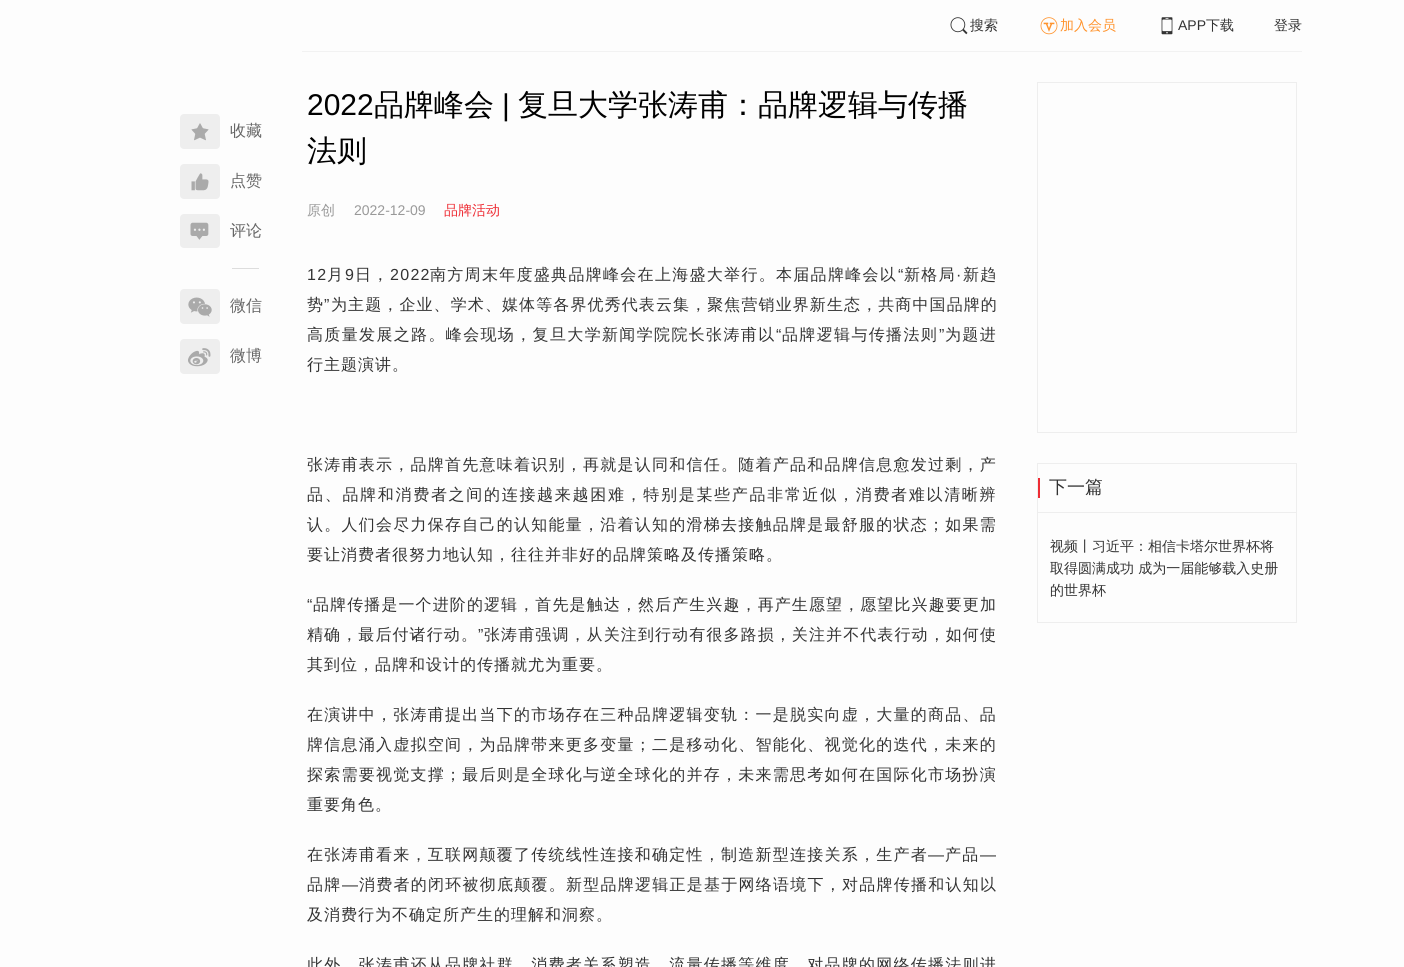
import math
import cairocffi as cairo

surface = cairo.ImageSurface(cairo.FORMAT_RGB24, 1404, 967)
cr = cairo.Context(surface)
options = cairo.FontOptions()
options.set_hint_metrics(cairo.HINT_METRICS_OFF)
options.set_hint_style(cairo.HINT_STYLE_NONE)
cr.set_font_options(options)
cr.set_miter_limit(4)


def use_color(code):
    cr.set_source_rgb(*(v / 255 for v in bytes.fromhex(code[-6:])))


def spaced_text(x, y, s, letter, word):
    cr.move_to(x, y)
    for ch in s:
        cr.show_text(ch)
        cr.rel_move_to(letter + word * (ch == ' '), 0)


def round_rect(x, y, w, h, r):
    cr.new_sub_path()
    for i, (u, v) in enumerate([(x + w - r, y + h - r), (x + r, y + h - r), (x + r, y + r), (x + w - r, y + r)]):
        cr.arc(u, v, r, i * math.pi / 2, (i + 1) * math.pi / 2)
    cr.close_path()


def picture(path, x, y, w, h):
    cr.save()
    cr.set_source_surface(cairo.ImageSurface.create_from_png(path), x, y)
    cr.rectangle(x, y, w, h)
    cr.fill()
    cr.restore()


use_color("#fdfdfd")
cr.paint()
use_color("#eeeeee")
round_rect(180, 114, 40, 35, 4)
cr.fill()
picture("img1.png", 191, 123, 18, 18)
cr.select_font_face("WenQuanYi Zen Hei Medium")
cr.set_font_size(16)
use_color("#666666")
cr.move_to(230, 136)
cr.show_text("收藏")
use_color("#eeeeee")
round_rect(180, 164, 40, 35, 4)
cr.fill()
picture("img2.png", 191, 173, 18, 18)
use_color("#666666")
cr.move_to(230, 186)
cr.show_text("点赞")
use_color("#eeeeee")
round_rect(180, 214, 40, 34, 4)
cr.fill()
picture("img3.png", 190, 222, 19, 18)
use_color("#666666")
cr.move_to(230, 236)
cr.show_text("评论")
use_color("#dddddd")
cr.rectangle(232, 268, 27, 1)
cr.fill()
use_color("#eeeeee")
round_rect(180, 289, 40, 35, 4)
cr.fill()
picture("img4.png", 188, 297, 24, 20)
use_color("#666666")
cr.move_to(230, 311)
cr.show_text("微信")
use_color("#eeeeee")
round_rect(180, 339, 40, 35, 4)
cr.fill()
picture("img5.png", 188, 348, 23, 19)
use_color("#666666")
cr.move_to(230, 361)
cr.show_text("微博")
use_color("#f2f2f2")
cr.rectangle(302, 51, 1000, 1)
cr.fill()
picture("img6.png", 950, 17, 18, 18)
cr.set_font_size(14)
use_color("#333333")
cr.move_to(970, 30)
cr.show_text("搜索")
picture("img7.png", 1040, 17, 18, 18)
use_color("#ff932c")
cr.move_to(1060, 30)
cr.show_text("加入会员")
picture("img8.png", 1161, 17, 12, 18)
cr.select_font_face("Liberation Sans")
use_color("#333333")
cr.move_to(1178, 30)
cr.show_text("APP")
cr.select_font_face("WenQuanYi Zen Hei Medium")
cr.move_to(1206, 30)
cr.show_text("下载")
cr.move_to(1274, 30)
cr.show_text("登录")
cr.select_font_face("Liberation Sans")
cr.set_font_size(30)
use_color("#000000")
cr.move_to(307, 115)
cr.show_text("2022")
cr.select_font_face("WenQuanYi Zen Hei Medium")
cr.move_to(374, 115)
cr.show_text("品牌峰会")
cr.select_font_face("Liberation Sans")
cr.move_to(502, 115)
cr.show_text("|")
cr.select_font_face("WenQuanYi Zen Hei Medium")
cr.move_to(518, 115)
cr.show_text("复旦大学张涛甫：品牌逻辑与传播")
cr.move_to(307, 161)
cr.show_text("法则")
cr.set_font_size(14)
use_color("#999999")
cr.move_to(307, 215)
cr.show_text("原创")
cr.select_font_face("Liberation Sans")
cr.move_to(354, 215)
cr.show_text("2022-12-09")
cr.select_font_face("WenQuanYi Zen Hei Medium")
use_color("#ee2c34")
cr.move_to(444, 215)
cr.show_text("品牌活动")
cr.select_font_face("Liberation Sans")
cr.set_font_size(16)
use_color("#333333")
spaced_text(307, 280, "12", 1.3, 0)
cr.select_font_face("WenQuanYi Zen Hei Medium")
spaced_text(327, 280, "月", 1.3, 0)
cr.select_font_face("Liberation Sans")
spaced_text(345, 280, "9", 1.3, 0)
cr.select_font_face("WenQuanYi Zen Hei Medium")
spaced_text(355, 280, "日，", 1.3, 0)
cr.select_font_face("Liberation Sans")
spaced_text(390, 280, "2022", 1.3, 0)
cr.select_font_face("WenQuanYi Zen Hei Medium")
spaced_text(430, 280, "南方周末年度盛典品牌峰会在上海盛大举行。本届品牌峰会以", 1.3, 0)
cr.select_font_face("Liberation Sans")
spaced_text(898, 280, "“", 1.3, 0)
cr.select_font_face("WenQuanYi Zen Hei Medium")
spaced_text(904, 280, "新格局", 1.3, 0)
spaced_text(963, 280, "新趋", 1.3, 0)
cr.select_font_face("Liberation Sans")
spaced_text(956, 280, "·", 1.3, 0)
cr.select_font_face("WenQuanYi Zen Hei Medium")
spaced_text(307, 310, "势", 1.1, 0)
cr.select_font_face("Liberation Sans")
spaced_text(324, 310, "”", 1.1, 0)
cr.select_font_face("WenQuanYi Zen Hei Medium")
spaced_text(331, 310, "为主题，企业、学术、媒体等各界优秀代表云集，聚焦营销业界新生态，共商中国品牌的", 1.1, 0)
spaced_text(307, 340, "高质量发展之路。峰会现场，复旦大学新闻学院院长张涛甫以", 1.35, 0)
cr.select_font_face("Liberation Sans")
spaced_text(776, 340, "“", 1.35, 0)
cr.select_font_face("WenQuanYi Zen Hei Medium")
spaced_text(782, 340, "品牌逻辑与传播法则", 1.35, 0)
cr.select_font_face("Liberation Sans")
spaced_text(939, 340, "”", 1.35, 0)
cr.select_font_face("WenQuanYi Zen Hei Medium")
spaced_text(945, 340, "为题进", 1.35, 0)
spaced_text(307, 370, "行主题演讲。", 1, 0)
spaced_text(307, 470, "张涛甫表示，品牌首先意味着识别，再就是认同和信任。随着产品和品牌信息愈发过剩，产", 1.25, 0)
spaced_text(307, 500, "品、品牌和消费者之间的连接越来越困难，特别是某些产品非常近似，消费者难以清晰辨", 1.7, 0)
spaced_text(307, 530, "认。人们会尽力保存自己的认知能量，沿着认知的滑梯去接触品牌是最舒服的状态；如果需", 1.25, 0)
spaced_text(307, 560, "要让消费者很努力地认知，往往并非好的品牌策略及传播策略。", 1, 0)
cr.select_font_face("Liberation Sans")
spaced_text(307, 610, "“", 1.1, 0)
cr.select_font_face("WenQuanYi Zen Hei Medium")
spaced_text(313, 610, "品牌传播是一个进阶的逻辑，首先是触达，然后产生兴趣，再产生愿望，愿望比兴趣要更加", 1.1, 0)
spaced_text(307, 640, "精确，最后付诸行动。", 1.1, 0)
cr.select_font_face("Liberation Sans")
spaced_text(478, 640, "”", 1.1, 0)
cr.select_font_face("WenQuanYi Zen Hei Medium")
spaced_text(484, 640, "张涛甫强调，从关注到行动有很多路损，关注并不代表行动，如何使", 1.1, 0)
spaced_text(307, 670, "其到位，品牌和设计的传播就尤为重要。", 1, 0)
spaced_text(307, 720, "在演讲中，张涛甫提出当下的市场存在三种品牌逻辑变轨：一是脱实向虚，大量的商品、品", 1.25, 0)
spaced_text(307, 750, "牌信息涌入虚拟空间，为品牌带来更多变量；二是移动化、智能化、视觉化的迭代，未来的", 1.25, 0)
spaced_text(307, 780, "探索需要视觉支撑；最后则是全球化与逆全球化的并存，未来需思考如何在国际化市场扮演", 1.25, 0)
spaced_text(307, 810, "重要角色。", 1, 0)
spaced_text(307, 860, "在张涛甫看来，互联网颠覆了传统线性连接和确定性，制造新型连接关系，生产者", 1.25, 0)
cr.select_font_face("Liberation Sans")
spaced_text(928, 860, "—", 1.25, 0)
cr.select_font_face("WenQuanYi Zen Hei Medium")
spaced_text(945, 860, "产品", 1.25, 0)
cr.select_font_face("Liberation Sans")
spaced_text(980, 860, "—", 1.25, 0)
cr.select_font_face("WenQuanYi Zen Hei Medium")
spaced_text(307, 890, "品牌", 1.25, 0)
cr.select_font_face("Liberation Sans")
spaced_text(342, 890, "—", 1.25, 0)
cr.select_font_face("WenQuanYi Zen Hei Medium")
spaced_text(359, 890, "消费者的闭环被彻底颠覆。新型品牌逻辑正是基于网络语境下，对品牌传播和认知以", 1.25, 0)
spaced_text(307, 920, "及消费行为不确定所产生的理解和洞察。", 1, 0)
spaced_text(307, 970, "此外，张涛甫还从品牌社群、消费者关系塑造、流量传播等维度，对品牌的网络传播法则进", 1.25, 0)
cr.rectangle(1037.5, 82.5, 259, 350)
use_color("#eeeeee")
cr.set_line_width(1)
cr.stroke()
cr.rectangle(1037.5, 463.5, 259, 159)
cr.stroke()
cr.rectangle(1038, 512, 258, 1)
cr.fill()
use_color("#ee2c34")
cr.rectangle(1038, 478, 2, 20)
cr.fill()
cr.set_font_size(18)
use_color("#333333")
cr.move_to(1049, 493)
cr.show_text("下一篇")
cr.set_font_size(14)
cr.move_to(1050, 551)
cr.show_text("视频丨习近平：相信卡塔尔世界杯将")
cr.move_to(1050, 573)
cr.show_text("取得圆满成功 成为一届能够载入史册")
cr.move_to(1050, 595)
cr.show_text("的世界杯")
surface.write_to_png("result.png")
